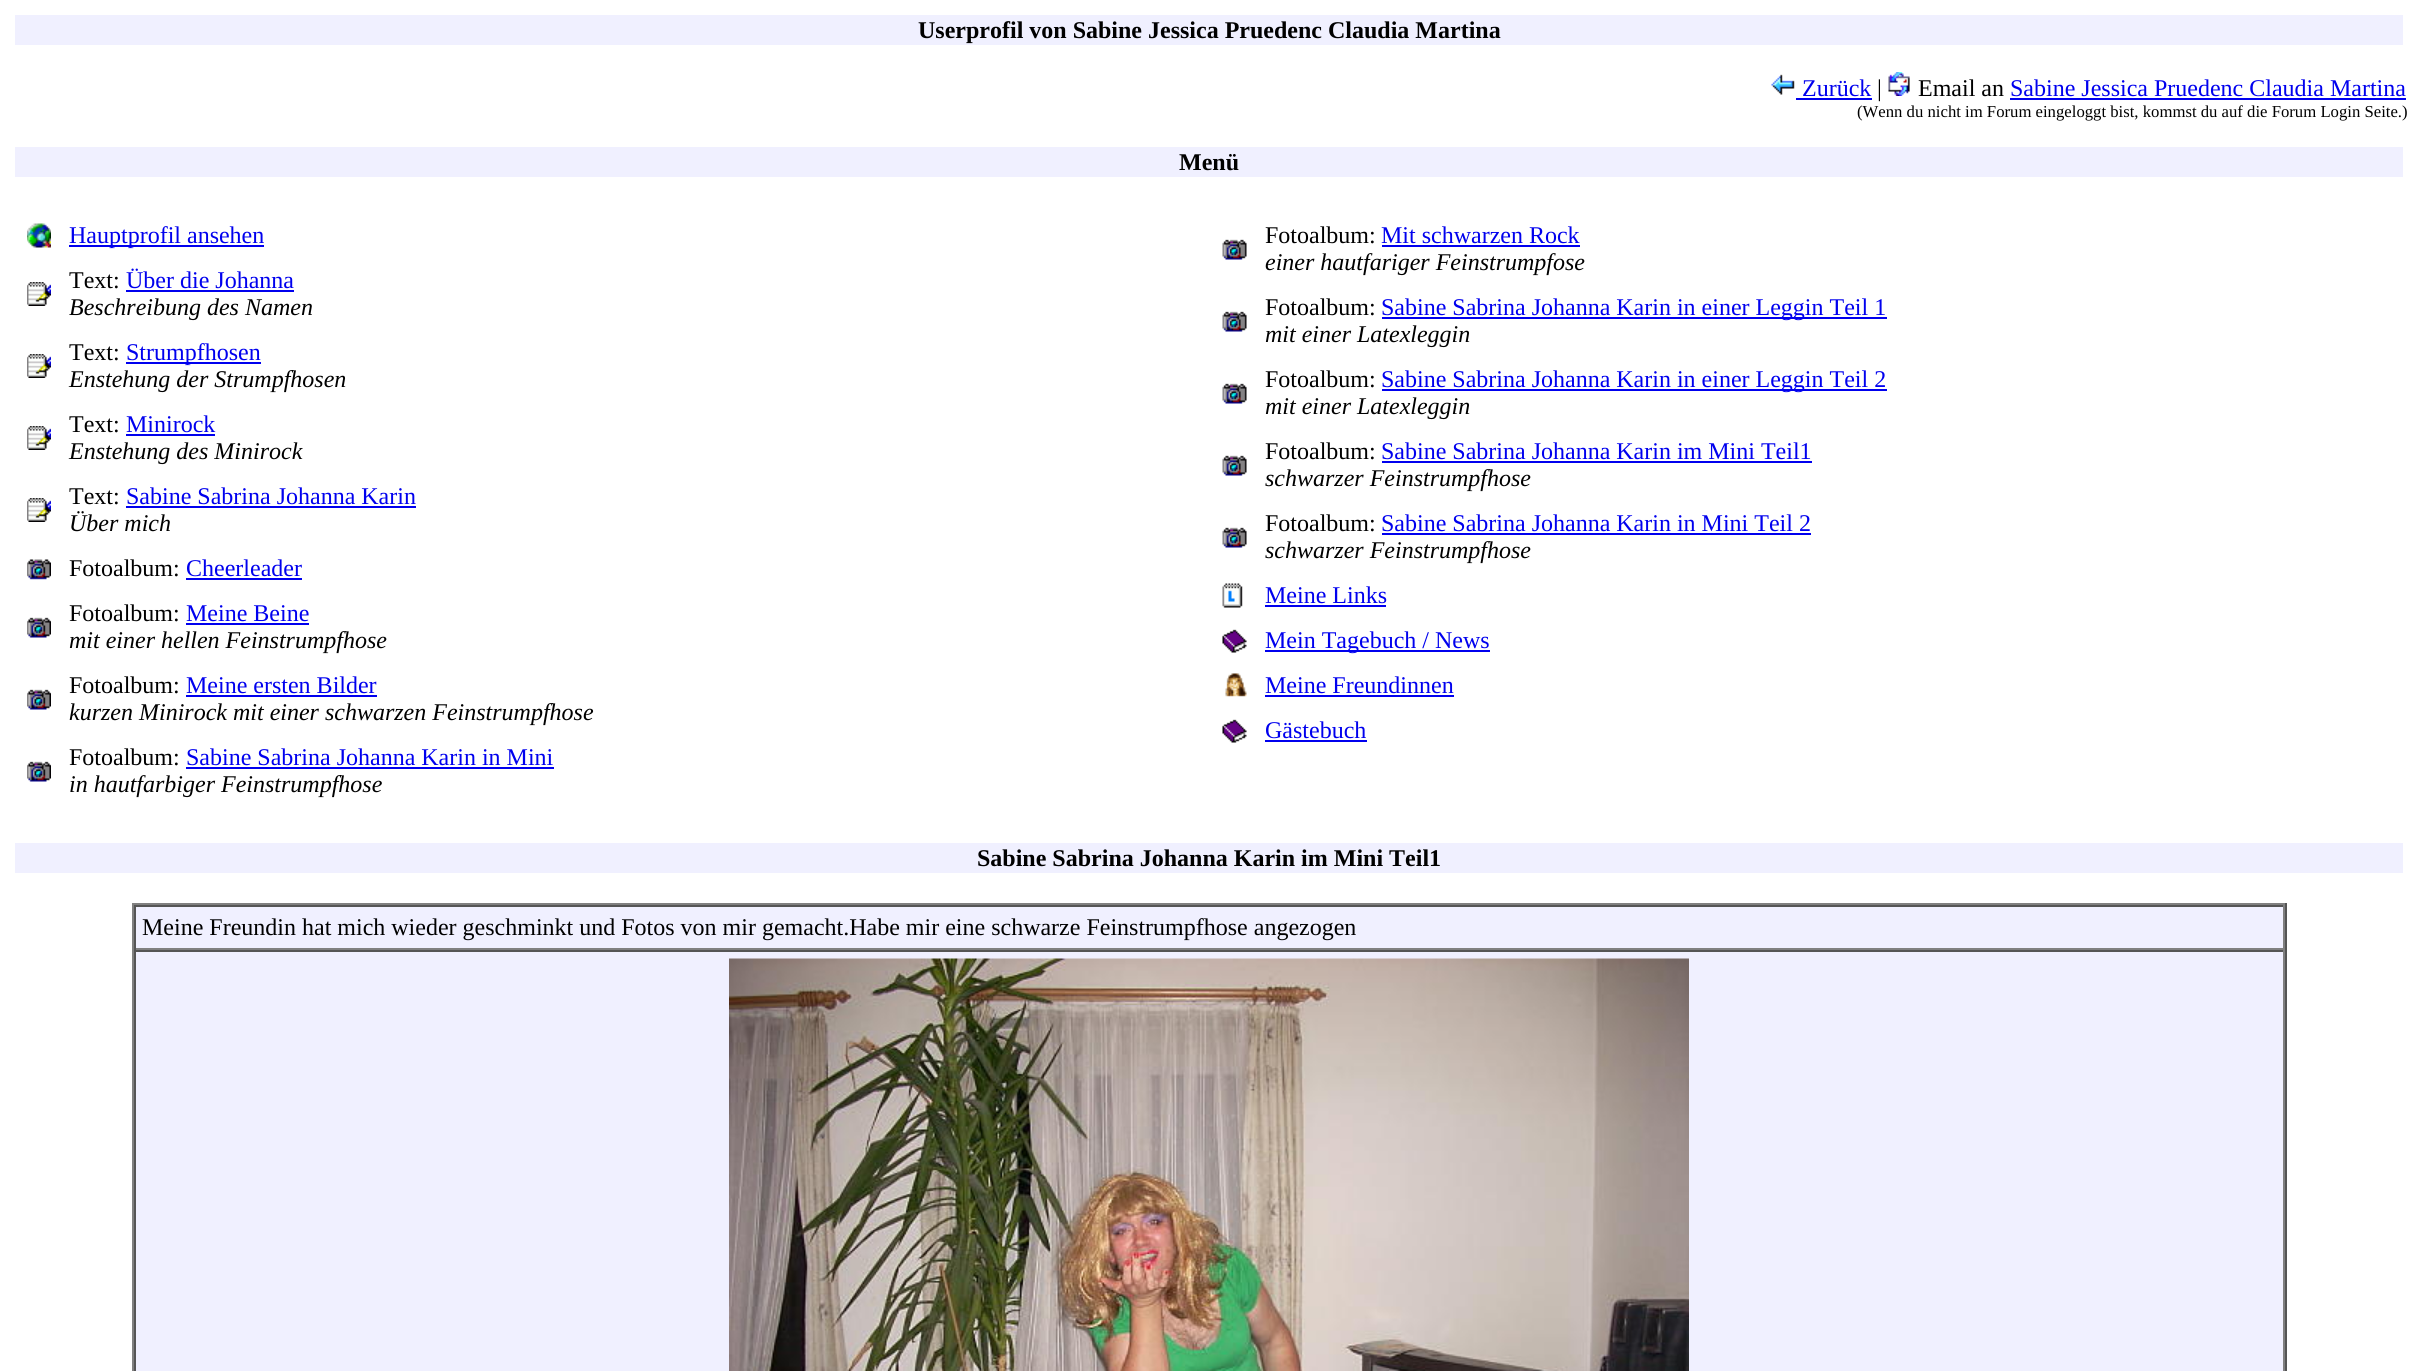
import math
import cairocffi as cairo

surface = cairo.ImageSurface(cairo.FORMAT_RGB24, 2418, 1371)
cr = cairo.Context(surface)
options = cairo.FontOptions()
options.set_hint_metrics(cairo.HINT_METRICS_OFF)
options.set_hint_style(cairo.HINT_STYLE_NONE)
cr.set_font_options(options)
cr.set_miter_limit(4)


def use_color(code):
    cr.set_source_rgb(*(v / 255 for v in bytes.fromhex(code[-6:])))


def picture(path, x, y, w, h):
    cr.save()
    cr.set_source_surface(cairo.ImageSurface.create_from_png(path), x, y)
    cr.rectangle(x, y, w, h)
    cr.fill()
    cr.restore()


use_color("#ffffff")
cr.paint()
use_color("#f0f0ff")
cr.rectangle(15, 15, 2388, 30)
cr.fill()
cr.select_font_face("Liberation Serif", cairo.FONT_SLANT_NORMAL, cairo.FONT_WEIGHT_BOLD)
cr.set_font_size(24)
use_color("#000000")
cr.move_to(918, 38)
cr.show_text("Userprofil von Sabine Jessica Pruedenc Claudia Martina")
picture("img1.png", 1771, 74, 24, 21)
cr.select_font_face("Liberation Serif")
use_color("#0000ee")
cr.move_to(1802, 96)
cr.show_text("Zurück")
cr.rectangle(1796, 98, 76, 2)
cr.fill()
use_color("#000000")
cr.move_to(1877, 96)
cr.show_text("|")
picture("img2.png", 1888, 72, 22, 24)
cr.move_to(1918, 96)
cr.show_text("Email an")
use_color("#0000ee")
cr.move_to(2010, 96)
cr.show_text("Sabine Jessica Pruedenc Claudia Martina")
cr.rectangle(2010, 98, 396, 2)
cr.fill()
cr.set_font_size(16.7)
use_color("#000000")
cr.move_to(1857, 117)
cr.show_text("(Wenn du nicht im Forum eingeloggt bist, kommst du auf die Forum Login Seite.)")
use_color("#f0f0ff")
cr.rectangle(15, 147, 2388, 30)
cr.fill()
cr.select_font_face("Liberation Serif", cairo.FONT_SLANT_NORMAL, cairo.FONT_WEIGHT_BOLD)
cr.set_font_size(24)
use_color("#000000")
cr.move_to(1179, 170)
cr.show_text("Menü")
picture("img3.png", 27, 223, 24, 25)
use_color("#0000ee")
cr.rectangle(69, 245, 195, 2)
cr.fill()
cr.select_font_face("Liberation Serif")
cr.move_to(69, 243)
cr.show_text("Hauptprofil ansehen")
picture("img4.png", 27, 282, 24, 24)
use_color("#000000")
cr.move_to(69, 288)
cr.show_text("Text:")
use_color("#0000ee")
cr.move_to(126, 288)
cr.show_text("Über die Johanna")
cr.rectangle(126, 290, 168, 2)
cr.fill()
cr.select_font_face("Liberation Serif", cairo.FONT_SLANT_ITALIC)
use_color("#000000")
cr.move_to(69, 315)
cr.show_text("Beschreibung des Namen")
picture("img4.png", 27, 354, 24, 24)
cr.select_font_face("Liberation Serif")
cr.move_to(69, 360)
cr.show_text("Text:")
use_color("#0000ee")
cr.rectangle(126, 362, 135, 2)
cr.fill()
cr.move_to(126, 360)
cr.show_text("Strumpfhosen")
cr.select_font_face("Liberation Serif", cairo.FONT_SLANT_ITALIC)
use_color("#000000")
cr.move_to(69, 387)
cr.show_text("Enstehung der Strumpfhosen")
picture("img4.png", 27, 426, 24, 24)
cr.select_font_face("Liberation Serif")
cr.move_to(69, 432)
cr.show_text("Text:")
use_color("#0000ee")
cr.move_to(126, 432)
cr.show_text("Minirock")
cr.rectangle(126, 434, 89, 2)
cr.fill()
cr.select_font_face("Liberation Serif", cairo.FONT_SLANT_ITALIC)
use_color("#000000")
cr.move_to(69, 459)
cr.show_text("Enstehung des Minirock")
picture("img4.png", 27, 498, 24, 24)
cr.select_font_face("Liberation Serif")
cr.move_to(69, 504)
cr.show_text("Text:")
use_color("#0000ee")
cr.move_to(126, 504)
cr.show_text("Sabine Sabrina Johanna Karin")
cr.rectangle(126, 506, 290, 2)
cr.fill()
cr.select_font_face("Liberation Serif", cairo.FONT_SLANT_ITALIC)
use_color("#000000")
cr.move_to(69, 531)
cr.show_text("Über mich")
picture("img5.png", 27, 559, 24, 21)
cr.select_font_face("Liberation Serif")
cr.move_to(69, 576)
cr.show_text("Fotoalbum:")
use_color("#0000ee")
cr.move_to(186, 576)
cr.show_text("Cheerleader")
cr.rectangle(186, 578, 116, 2)
cr.fill()
picture("img6.png", 27, 617, 24, 21)
use_color("#000000")
cr.move_to(69, 621)
cr.show_text("Fotoalbum:")
use_color("#0000ee")
cr.move_to(186, 621)
cr.show_text("Meine Beine")
cr.rectangle(186, 623, 123, 2)
cr.fill()
cr.select_font_face("Liberation Serif", cairo.FONT_SLANT_ITALIC)
use_color("#000000")
cr.move_to(69, 648)
cr.show_text("mit einer hellen Feinstrumpfhose")
picture("img6.png", 27, 689, 24, 21)
cr.select_font_face("Liberation Serif")
cr.move_to(69, 693)
cr.show_text("Fotoalbum:")
use_color("#0000ee")
cr.move_to(186, 693)
cr.show_text("Meine ersten Bilder")
cr.rectangle(186, 695, 191, 2)
cr.fill()
cr.select_font_face("Liberation Serif", cairo.FONT_SLANT_ITALIC)
use_color("#000000")
cr.move_to(69, 720)
cr.show_text("kurzen Minirock mit einer schwarzen Feinstrumpfhose")
picture("img6.png", 27, 761, 24, 21)
cr.select_font_face("Liberation Serif")
cr.move_to(69, 765)
cr.show_text("Fotoalbum:")
use_color("#0000ee")
cr.move_to(186, 765)
cr.show_text("Sabine Sabrina Johanna Karin in Mini")
cr.rectangle(186, 767, 368, 2)
cr.fill()
cr.select_font_face("Liberation Serif", cairo.FONT_SLANT_ITALIC)
use_color("#000000")
cr.move_to(69, 792)
cr.show_text("in hautfarbiger Feinstrumpfhose")
picture("img7.png", 1222, 239, 25, 21)
cr.select_font_face("Liberation Serif")
cr.move_to(1265, 243)
cr.show_text("Fotoalbum:")
use_color("#0000ee")
cr.move_to(1381, 243)
cr.show_text("Mit schwarzen Rock")
cr.rectangle(1382, 245, 198, 2)
cr.fill()
cr.select_font_face("Liberation Serif", cairo.FONT_SLANT_ITALIC)
use_color("#000000")
cr.move_to(1265, 270)
cr.show_text("einer hautfariger Feinstrumpfose")
picture("img7.png", 1222, 311, 25, 21)
cr.select_font_face("Liberation Serif")
cr.move_to(1265, 315)
cr.show_text("Fotoalbum:")
use_color("#0000ee")
cr.rectangle(1382, 317, 505, 2)
cr.fill()
cr.move_to(1381, 315)
cr.show_text("Sabine Sabrina Johanna Karin in einer Leggin Teil 1")
cr.select_font_face("Liberation Serif", cairo.FONT_SLANT_ITALIC)
use_color("#000000")
cr.move_to(1265, 342)
cr.show_text("mit einer Latexleggin")
picture("img7.png", 1222, 383, 25, 21)
cr.select_font_face("Liberation Serif")
cr.move_to(1265, 387)
cr.show_text("Fotoalbum:")
use_color("#0000ee")
cr.rectangle(1382, 389, 505, 2)
cr.fill()
cr.move_to(1381, 387)
cr.show_text("Sabine Sabrina Johanna Karin in einer Leggin Teil 2")
cr.select_font_face("Liberation Serif", cairo.FONT_SLANT_ITALIC)
use_color("#000000")
cr.move_to(1265, 414)
cr.show_text("mit einer Latexleggin")
picture("img7.png", 1222, 455, 25, 21)
cr.select_font_face("Liberation Serif")
cr.move_to(1265, 459)
cr.show_text("Fotoalbum:")
use_color("#0000ee")
cr.move_to(1381, 459)
cr.show_text("Sabine Sabrina Johanna Karin im Mini Teil1")
cr.rectangle(1382, 461, 430, 2)
cr.fill()
cr.select_font_face("Liberation Serif", cairo.FONT_SLANT_ITALIC)
use_color("#000000")
cr.move_to(1265, 486)
cr.show_text("schwarzer Feinstrumpfhose")
picture("img7.png", 1222, 527, 25, 21)
cr.select_font_face("Liberation Serif")
cr.move_to(1265, 531)
cr.show_text("Fotoalbum:")
use_color("#0000ee")
cr.move_to(1381, 531)
cr.show_text("Sabine Sabrina Johanna Karin in Mini Teil 2")
cr.rectangle(1382, 533, 429, 2)
cr.fill()
cr.select_font_face("Liberation Serif", cairo.FONT_SLANT_ITALIC)
use_color("#000000")
cr.move_to(1265, 558)
cr.show_text("schwarzer Feinstrumpfhose")
picture("img8.png", 1222, 583, 21, 25)
cr.select_font_face("Liberation Serif")
use_color("#0000ee")
cr.move_to(1265, 603)
cr.show_text("Meine Links")
cr.rectangle(1265, 605, 121, 2)
cr.fill()
picture("img9.png", 1222, 629, 25, 24)
cr.rectangle(1265, 650, 225, 2)
cr.fill()
cr.move_to(1265, 648)
cr.show_text("Mein Tagebuch / News")
picture("img10.png", 1225, 673, 22, 24)
cr.move_to(1265, 693)
cr.show_text("Meine Freundinnen")
cr.rectangle(1265, 695, 189, 2)
cr.fill()
picture("img9.png", 1222, 719, 25, 24)
cr.move_to(1265, 738)
cr.show_text("Gästebuch")
cr.rectangle(1265, 740, 102, 2)
cr.fill()
use_color("#f0f0ff")
cr.rectangle(15, 843, 2388, 30)
cr.fill()
cr.select_font_face("Liberation Serif", cairo.FONT_SLANT_NORMAL, cairo.FONT_WEIGHT_BOLD)
use_color("#000000")
cr.move_to(977, 866)
cr.show_text("Sabine Sabrina Johanna Karin im Mini Teil1")
use_color("#f0f0ff")
cr.rectangle(136, 907, 2147, 464)
cr.fill()
use_color("#808080")
cr.rectangle(132, 903, 2154, 2)
cr.fill()
use_color("#555555")
cr.rectangle(2285, 903, 2, 468)
cr.fill()
use_color("#808080")
cr.rectangle(132, 903, 2, 468)
cr.fill()
use_color("#555555")
cr.rectangle(134, 905, 2151, 2)
cr.fill()
use_color("#808080")
cr.rectangle(2283, 905, 2, 45)
cr.fill()
cr.rectangle(134, 948, 2151, 2)
cr.fill()
use_color("#555555")
cr.rectangle(134, 905, 2, 45)
cr.fill()
cr.select_font_face("Liberation Serif")
use_color("#000000")
cr.move_to(142, 935)
cr.show_text("Meine Freundin hat mich wieder geschminkt und Fotos von mir gemacht.Habe mir eine schwarze Feinstrumpfhose angezogen")
use_color("#555555")
cr.rectangle(134, 950, 2151, 2)
cr.fill()
use_color("#808080")
cr.rectangle(2283, 950, 2, 421)
cr.fill()
use_color("#555555")
cr.rectangle(134, 950, 2, 421)
cr.fill()
picture("img11.png", 729, 958, 960, 413)
surface.write_to_png("result.png")
